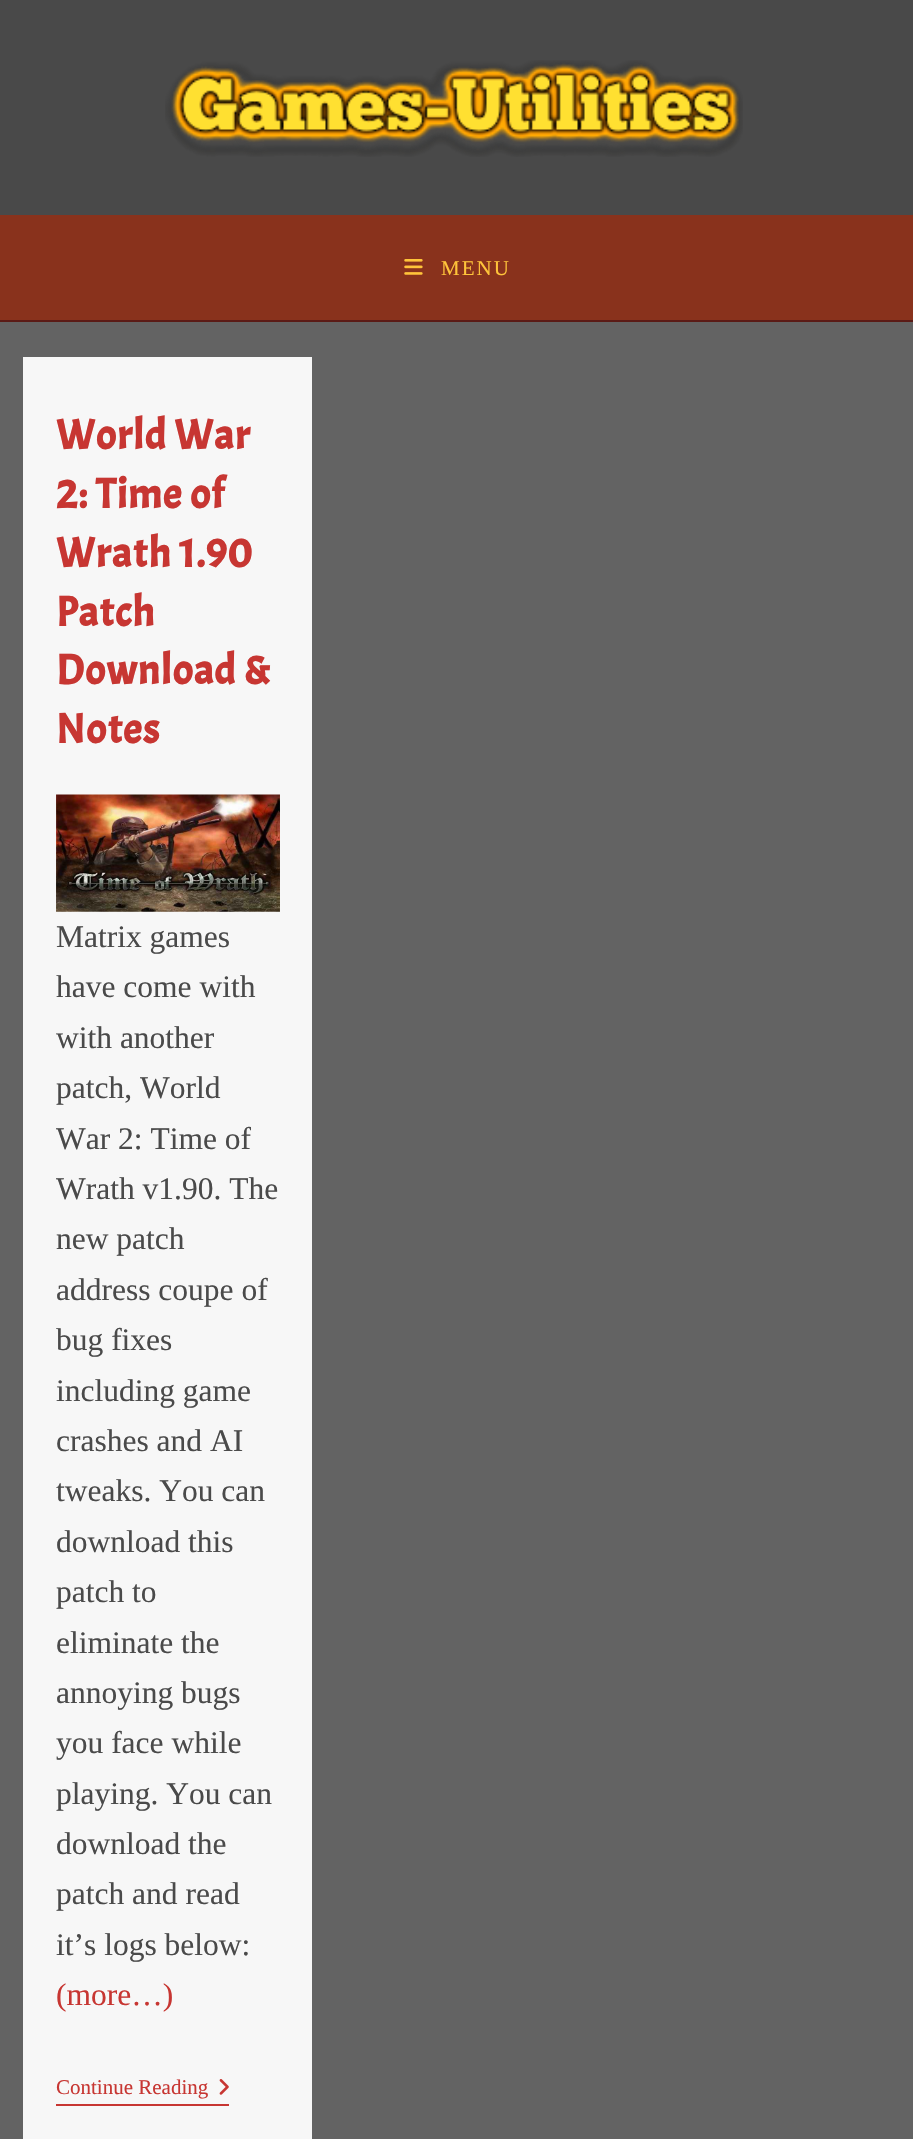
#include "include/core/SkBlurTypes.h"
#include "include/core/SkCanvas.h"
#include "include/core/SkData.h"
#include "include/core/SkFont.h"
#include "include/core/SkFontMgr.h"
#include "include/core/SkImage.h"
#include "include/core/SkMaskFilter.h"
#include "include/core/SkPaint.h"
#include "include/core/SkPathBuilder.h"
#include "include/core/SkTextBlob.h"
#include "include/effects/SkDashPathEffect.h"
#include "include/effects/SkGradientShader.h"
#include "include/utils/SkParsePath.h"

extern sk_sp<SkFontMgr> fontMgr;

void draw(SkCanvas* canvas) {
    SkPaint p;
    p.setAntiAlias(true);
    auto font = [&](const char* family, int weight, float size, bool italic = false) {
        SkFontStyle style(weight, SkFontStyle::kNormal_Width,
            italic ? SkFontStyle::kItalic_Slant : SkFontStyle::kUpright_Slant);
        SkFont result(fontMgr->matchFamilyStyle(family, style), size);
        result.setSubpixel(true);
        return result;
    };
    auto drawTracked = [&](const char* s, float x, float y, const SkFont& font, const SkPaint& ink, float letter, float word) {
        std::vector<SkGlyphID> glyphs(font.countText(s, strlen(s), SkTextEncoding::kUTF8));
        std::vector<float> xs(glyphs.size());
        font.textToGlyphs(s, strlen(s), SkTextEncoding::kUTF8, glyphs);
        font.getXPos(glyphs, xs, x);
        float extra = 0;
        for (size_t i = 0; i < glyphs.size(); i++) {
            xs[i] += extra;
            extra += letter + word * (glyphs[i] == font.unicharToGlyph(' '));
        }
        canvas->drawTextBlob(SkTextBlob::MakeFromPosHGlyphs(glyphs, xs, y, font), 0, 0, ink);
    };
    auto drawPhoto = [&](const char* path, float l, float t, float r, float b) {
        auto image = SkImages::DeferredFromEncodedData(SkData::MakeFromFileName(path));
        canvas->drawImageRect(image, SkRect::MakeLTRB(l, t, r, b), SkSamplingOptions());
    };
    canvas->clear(0xFF636363);
    p.setColor(0xFF5B1B16);
    canvas->drawRect(SkRect::MakeLTRB(0, 320, 913, 322), p);
    p.setColor(0xFF494949);
    canvas->drawRect(SkRect::MakeLTRB(0, 0, 913, 215), p);
    drawPhoto("media/1.png", 165, 60, 743, 157);
    p.setColor(0xFF89321C);
    canvas->drawRect(SkRect::MakeLTRB(0, 215, 913, 320), p);
    drawPhoto("media/2.png", 404, 259, 423, 275);
    auto font1 = font("Liberation Serif", 400, 21);
    p.setColor(0xFFFFC43A);
    drawTracked("MENU", 441, 275, font1, p, 2, 0);
    p.setColor(0xFFF7F7F7);
    canvas->drawRect(SkRect::MakeLTRB(23, 357, 312, 2139), p);
    auto font2 = font("Acme", 700, 42);
    p.setColor(0xFFC73632);
    {
        const struct { const char* s; float x, y; } items[] = {
            {"World War", 56, 449},
            {"2: Time of", 56, 508},
            {"Wrath 1.90", 56, 567},
            {"Patch", 56, 626},
            {"Download &", 56, 684},
            {"Notes", 56, 743},
        };
        for (auto [s, x, y] : items) {
            drawTracked(s, x, y, font2, p, 1, 0);
        }
    }
    drawPhoto("media/3.png", 56, 794, 280, 912);
    auto font3 = font("Liberation Serif", 400, 31.5f);
    p.setColor(0xFF4A4A4A);
    {
        const struct { const char* s; float x, y; } items[] = {
            {"Matrix games", 56, 947},
            {"have come with", 56, 997},
            {"with another", 56, 1048},
            {"patch, World", 56, 1098},
            {"War 2: Time of", 56, 1149},
            {"Wrath v1.90. The", 56, 1199},
            {"new patch", 56, 1249},
            {"address coupe of", 56, 1300},
            {"bug fixes", 56, 1350},
            {"including game", 56, 1401},
            {"crashes and AI", 56, 1451},
            {"tweaks. You can", 56, 1501},
            {"download this", 56, 1552},
            {"patch to", 56, 1602},
            {"eliminate the", 56, 1653},
            {"annoying bugs", 56, 1703},
            {"you face while", 56, 1753},
            {"playing. You can", 56, 1804},
            {"download the", 56, 1854},
            {"patch and read", 56, 1904},
            {"it’s logs below:", 56, 1955},
        };
        for (auto [s, x, y] : items) {
            canvas->drawString(s, x, y, font3, p);
        }
    }
    p.setColor(0xFFC73632);
    canvas->drawString("(more…)", 56, 2005, font3, p);
    canvas->drawRect(SkRect::MakeLTRB(56, 2104, 229, 2106), p);
    canvas->drawString("Continue Reading", 56, 2094, font1, p);
    drawPhoto("media/4.png", 219, 2079, 229, 2095);
}
